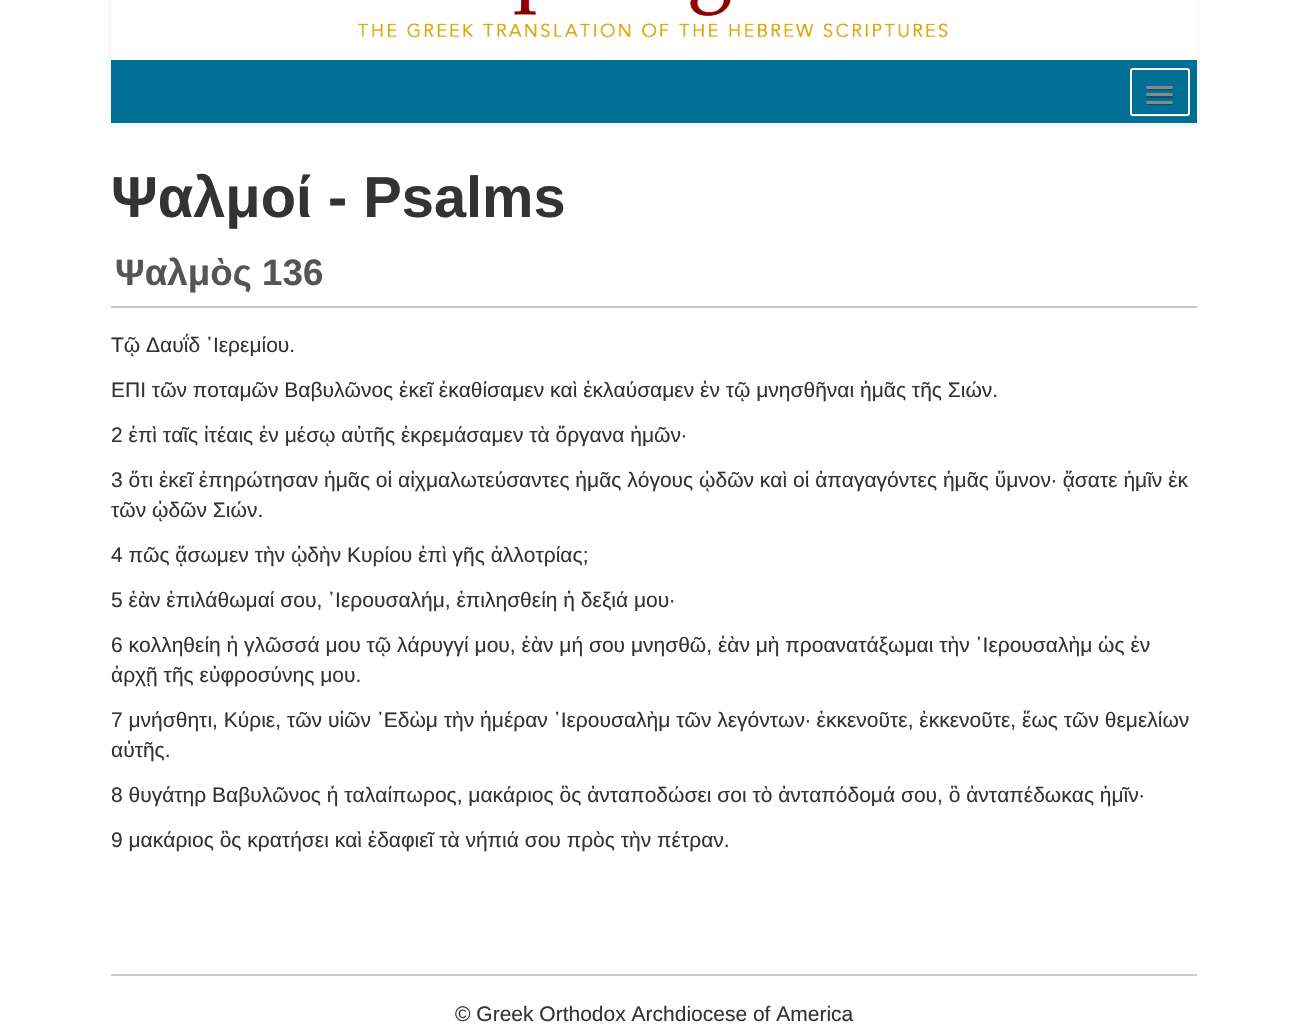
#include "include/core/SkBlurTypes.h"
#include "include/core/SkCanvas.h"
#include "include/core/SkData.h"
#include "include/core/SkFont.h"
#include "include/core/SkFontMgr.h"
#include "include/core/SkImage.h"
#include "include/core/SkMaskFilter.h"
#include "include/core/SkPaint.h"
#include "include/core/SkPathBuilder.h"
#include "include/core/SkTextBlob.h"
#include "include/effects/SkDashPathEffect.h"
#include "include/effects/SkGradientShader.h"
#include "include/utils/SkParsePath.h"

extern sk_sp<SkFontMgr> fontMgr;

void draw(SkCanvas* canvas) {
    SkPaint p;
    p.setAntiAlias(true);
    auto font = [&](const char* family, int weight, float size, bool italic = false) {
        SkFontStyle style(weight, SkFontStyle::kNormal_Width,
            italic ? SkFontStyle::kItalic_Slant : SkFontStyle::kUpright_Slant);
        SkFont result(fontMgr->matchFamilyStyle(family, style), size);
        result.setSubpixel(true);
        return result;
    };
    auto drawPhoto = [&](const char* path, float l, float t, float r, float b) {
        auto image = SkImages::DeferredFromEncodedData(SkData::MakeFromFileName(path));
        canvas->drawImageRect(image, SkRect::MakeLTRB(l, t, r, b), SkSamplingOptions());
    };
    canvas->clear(0xFFFFFFFF);
    p.setColor(0xFF006E95);
    canvas->drawRect(SkRect::MakeLTRB(111, 60, 1197, 123), p);
    canvas->save();
    canvas->clipPath(SkPathBuilder(SkPathFillType::kEvenOdd).moveTo(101, 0).lineTo(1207, 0).lineTo(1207, 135).lineTo(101, 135).close().moveTo(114, -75).lineTo(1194, -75).cubicTo(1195.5f, -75, 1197, -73.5f, 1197, -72).lineTo(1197, 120).cubicTo(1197, 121.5f, 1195.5f, 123, 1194, 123).lineTo(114, 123).cubicTo(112.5f, 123, 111, 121.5f, 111, 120).lineTo(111, -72).cubicTo(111, -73.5f, 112.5f, -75, 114, -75).close().detach(), true);
    p.setColor(0x12000000);
    p.setMaskFilter(SkMaskFilter::MakeBlur(kNormal_SkBlurStyle, 3));
    canvas->drawRoundRect(SkRect::MakeLTRB(111, -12, 1197, 125), 3, 3, p);
    p.setMaskFilter(nullptr);
    canvas->restore();
    p.setColor(0xFF13799D);
    canvas->drawPath(SkPathBuilder().moveTo(1130, 114).cubicTo(1130, 116, 1131, 117, 1133, 117).lineTo(1187, 117).cubicTo(1189, 117, 1190, 116, 1190, 114).lineTo(1190, 72).lineTo(1189, 70).lineTo(1190, 106).cubicTo(1190, 117, 1190, 116, 1178, 116).lineTo(1142, 116).cubicTo(1141, 116, 1132, 117, 1130, 114).close().detach(), p);
    p.setColor(0xFF1A7DA0);
    canvas->drawPath(SkPathBuilder().moveTo(1132, 70).lineTo(1186, 70).cubicTo(1187, 70, 1188, 71, 1188, 72).cubicTo(1188, 66, 1183, 69, 1178, 69).lineTo(1142, 69).cubicTo(1136, 69, 1131, 66, 1131, 72).close().detach(), p);
    p.setStyle(SkPaint::kStroke_Style);
    p.setStrokeWidth(2);
    p.setColor(0xFFFFFFFF);
    canvas->drawRoundRect(SkRect::MakeLTRB(1131, 69, 1189, 115), 2, 2, p);
    p.setStyle(SkPaint::kFill_Style);
    p.setColor(0xFF005370);
    canvas->drawPath(SkPathBuilder().moveTo(1146, 87.5f).cubicTo(1144.5f, 91, 1151.5f, 90, 1151.5f, 90).lineTo(1167.5f, 90).cubicTo(1167.5f, 90, 1174.5f, 91, 1173, 87.5f).cubicTo(1172.5f, 88, 1172, 88.5f, 1171.5f, 88.5f).lineTo(1147.5f, 88.5f).cubicTo(1147, 88.5f, 1146.5f, 88, 1146, 87.5f).close().detach(), p);
    p.setColor(0xFF888888);
    canvas->drawRoundRect(SkRect::MakeLTRB(1146, 86, 1173, 89), 1.5f, 1.5f, p);
    p.setColor(0xFF005370);
    canvas->drawPath(SkPathBuilder().moveTo(1146.5f, 95.5f).lineTo(1146, 97).cubicTo(1146.5f, 99, 1151, 98, 1151.5f, 98).lineTo(1167.5f, 98).cubicTo(1168, 98, 1172.5f, 99, 1173, 97).lineTo(1172.5f, 95.5f).lineTo(1171.5f, 96).lineTo(1147.5f, 96).close().detach(), p);
    p.setColor(0xFF888888);
    canvas->drawRoundRect(SkRect::MakeLTRB(1146, 93, 1173, 96), 1.5f, 1.5f, p);
    p.setColor(0xFF005370);
    canvas->drawPath(SkPathBuilder().moveTo(1146, 102.5f).cubicTo(1144.5f, 106, 1151.5f, 105, 1151.5f, 105).lineTo(1167.5f, 105).cubicTo(1167.5f, 105, 1174.5f, 106, 1173, 102.5f).cubicTo(1172.5f, 103, 1172, 103.5f, 1171.5f, 103.5f).lineTo(1147.5f, 103.5f).cubicTo(1147, 103.5f, 1146.5f, 103, 1146, 102.5f).close().detach(), p);
    p.setColor(0xFF888888);
    canvas->drawRoundRect(SkRect::MakeLTRB(1146, 101, 1173, 104), 1.5f, 1.5f, p);
    drawPhoto("media/1.png", 357, 0, 948, 38);
    auto font1 = font("Liberation Sans", 700, 57.75f);
    p.setColor(0xFF333333);
    canvas->drawString("Ψαλμοί - Psalms", 111, 217, font1, p);
    p.setColor(0xFFC8C9CA);
    canvas->drawRect(SkRect::MakeLTRB(111, 306, 1197, 308), p);
    auto font2 = font("Liberation Sans", 700, 36.75f);
    p.setColor(0xFF555555);
    canvas->drawString("Ψαλμὸς 136", 115, 285, font2, p);
    auto font3 = font("Liberation Sans", 400, 21);
    p.setColor(0xFF333333);
    {
        const struct { const char* s; float x, y; } items[] = {
            {"Τῷ Δαυΐδ ῾Ιερεμίου.", 111, 352},
            {"ΕΠΙ τῶν ποταμῶν Βαβυλῶνος ἐκεῖ ἐκαθίσαμεν καὶ ἐκλαύσαμεν ἐν τῷ μνησθῆναι ἡμᾶς τῆς Σιών.", 111, 397},
            {"2 ἐπὶ ταῖς ἰτέαις ἐν μέσῳ αὐτῆς ἐκρεμάσαμεν τὰ ὄργανα ἡμῶν·", 111, 442},
            {"3 ὅτι ἐκεῖ ἐπηρώτησαν ἡμᾶς οἱ αἰχμαλωτεύσαντες ἡμᾶς λόγους ᾠδῶν καὶ οἱ ἀπαγαγόντες ἡμᾶς ὕμνον· ᾄσατε ἡμῖν ἐκ", 111, 487},
            {"τῶν ᾠδῶν Σιών.", 111, 517},
            {"4 πῶς ᾄσωμεν τὴν ᾠδὴν Κυρίου ἐπὶ γῆς ἀλλοτρίας;", 111, 562},
            {"5 ἐὰν ἐπιλάθωμαί σου, ῾Ιερουσαλήμ, ἐπιλησθείη ἡ δεξιά μου·", 111, 607},
            {"6 κολληθείη ἡ γλῶσσά μου τῷ λάρυγγί μου, ἐὰν μή σου μνησθῶ, ἐὰν μὴ προανατάξωμαι τὴν ῾Ιερουσαλὴμ ὡς ἐν", 111, 652},
            {"ἀρχῇ τῆς εὐφροσύνης μου.", 111, 682},
            {"7 μνήσθητι, Κύριε, τῶν υἱῶν ᾿Εδὼμ τὴν ἡμέραν ῾Ιερουσαλὴμ τῶν λεγόντων· ἐκκενοῦτε, ἐκκενοῦτε, ἕως τῶν θεμελίων", 111, 727},
            {"αὐτῆς.", 111, 757},
            {"8 θυγάτηρ Βαβυλῶνος ἡ ταλαίπωρος, μακάριος ὃς ἀνταποδώσει σοι τὸ ἀνταπόδομά σου, ὃ ἀνταπέδωκας ἡμῖν·", 111, 802},
            {"9 μακάριος ὃς κρατήσει καὶ ἐδαφιεῖ τὰ νήπιά σου πρὸς τὴν πέτραν.", 111, 847},
        };
        for (auto [s, x, y] : items) {
            canvas->drawString(s, x, y, font3, p);
        }
    }
    p.setColor(0xFFCCCCCC);
    canvas->drawRect(SkRect::MakeLTRB(111, 974, 1197, 976), p);
    p.setColor(0xFF333333);
    canvas->drawString("© Greek Orthodox Archdiocese of America", 455, 1021, font3, p);
}
